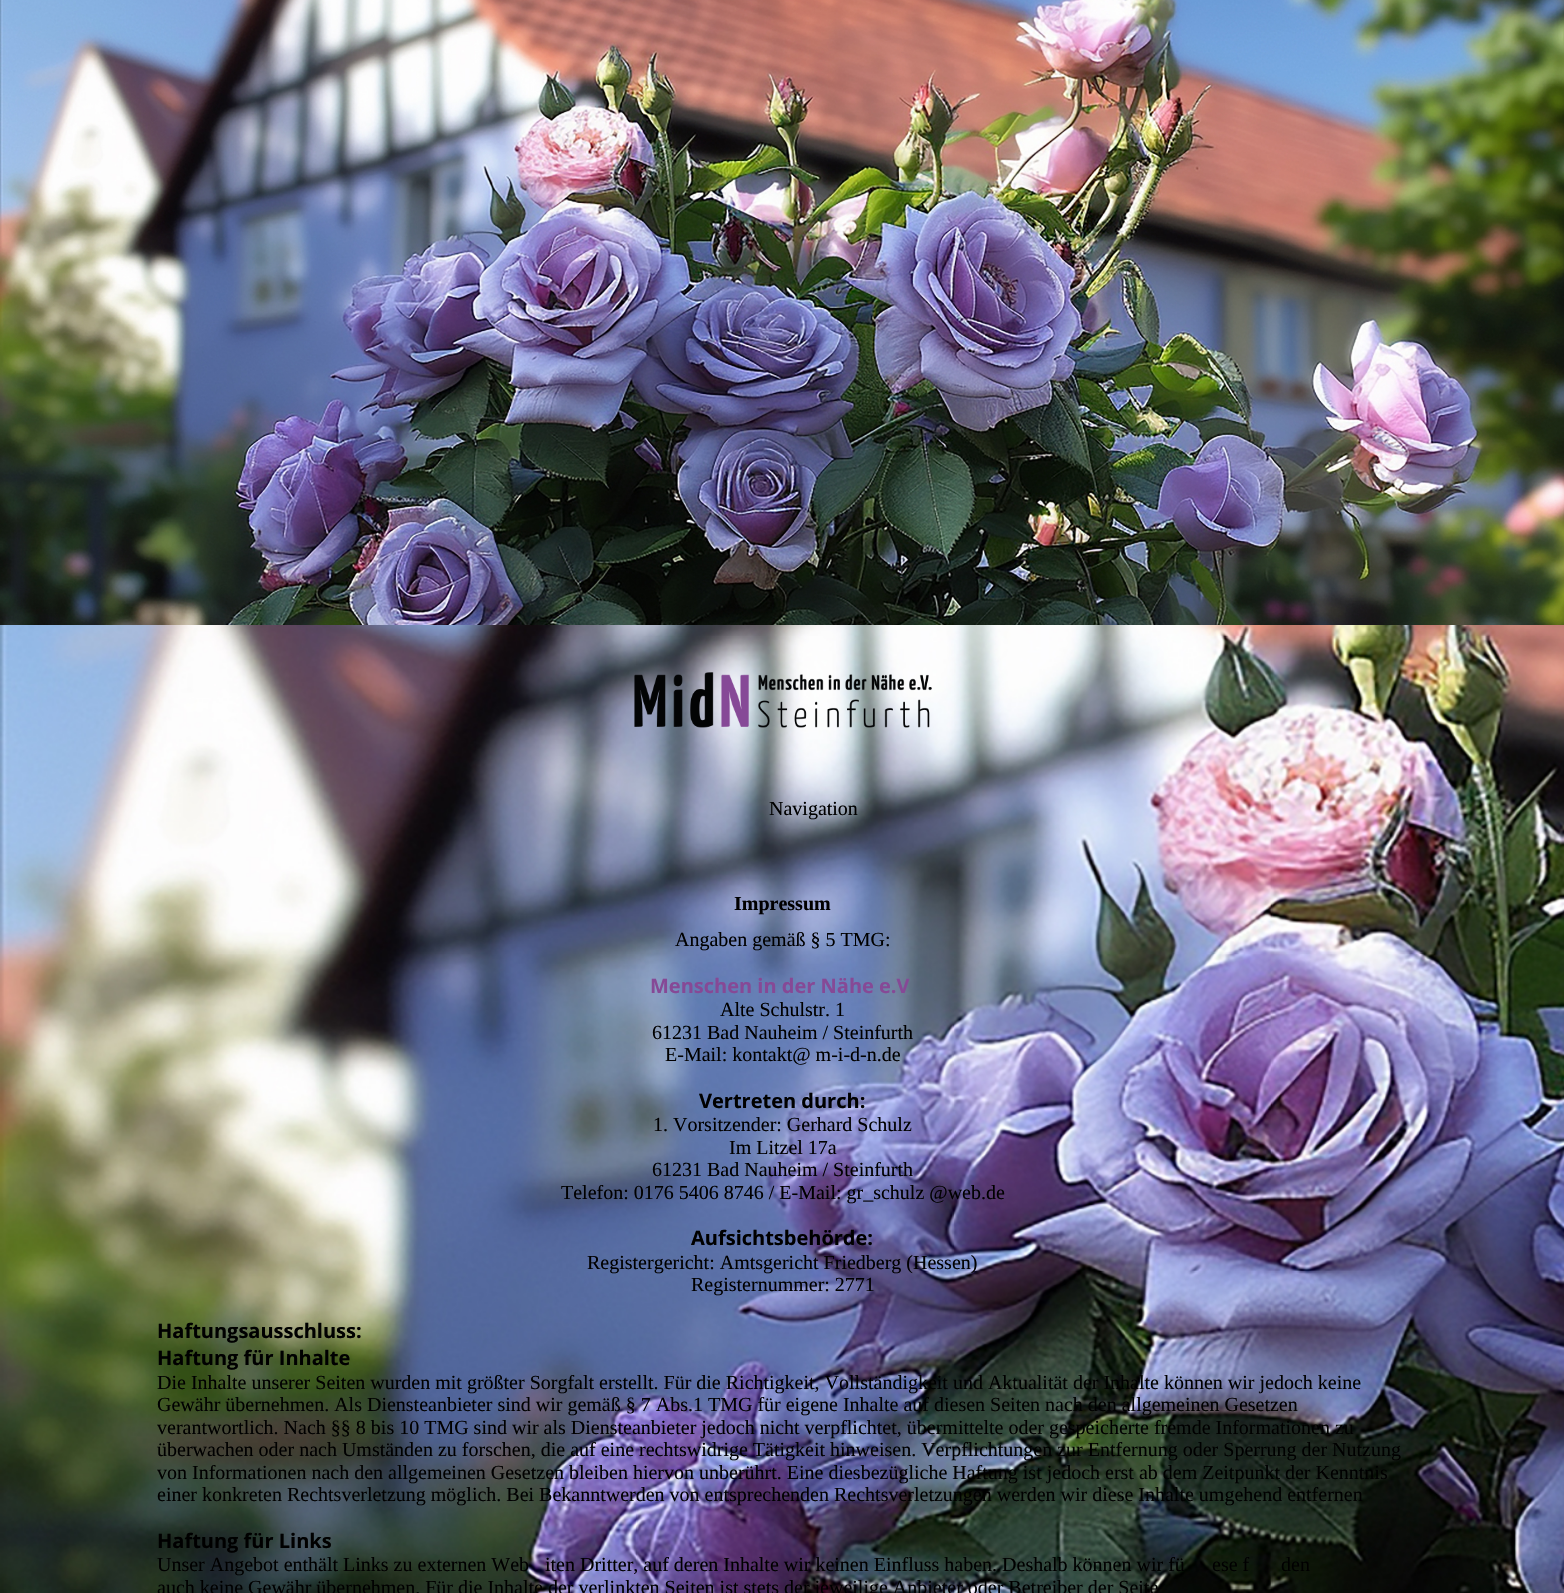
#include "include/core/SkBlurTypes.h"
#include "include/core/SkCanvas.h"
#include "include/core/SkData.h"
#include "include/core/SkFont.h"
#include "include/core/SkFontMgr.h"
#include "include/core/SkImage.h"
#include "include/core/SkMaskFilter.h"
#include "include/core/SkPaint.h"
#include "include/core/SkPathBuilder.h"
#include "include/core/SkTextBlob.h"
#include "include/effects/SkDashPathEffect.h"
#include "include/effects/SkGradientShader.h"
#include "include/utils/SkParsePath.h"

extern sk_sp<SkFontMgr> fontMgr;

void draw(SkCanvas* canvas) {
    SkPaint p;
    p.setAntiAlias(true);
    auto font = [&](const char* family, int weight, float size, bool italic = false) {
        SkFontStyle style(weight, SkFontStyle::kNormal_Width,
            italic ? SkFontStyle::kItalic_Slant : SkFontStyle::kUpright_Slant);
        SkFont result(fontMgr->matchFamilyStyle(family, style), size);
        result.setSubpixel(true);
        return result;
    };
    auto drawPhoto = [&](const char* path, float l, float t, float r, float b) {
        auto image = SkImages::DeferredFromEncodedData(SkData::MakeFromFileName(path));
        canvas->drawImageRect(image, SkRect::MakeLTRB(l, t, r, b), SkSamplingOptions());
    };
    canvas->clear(0xFFFFFFFF);
    drawPhoto("media/1.png", 0, 625, 1564, 1593);
    drawPhoto("media/2.png", 0, 0, 1564, 625);
    drawPhoto("media/3.png", 634, 672, 932, 728);
    auto font1 = font("Liberation Serif", 400, 20);
    p.setColor(0xFF000000);
    canvas->drawString("Navigation", 769, 815, font1, p);
    auto font2 = font("Liberation Serif", 700, 20);
    canvas->drawString("Impressum", 734, 910, font2, p);
    canvas->drawString("Angaben gemäß § 5 TMG:", 675, 946, font1, p);
    auto font3 = font("Open Sans", 700, 20);
    p.setColor(0xFF864996);
    canvas->drawString("Menschen in der Nähe e.V", 650, 993, font3, p);
    p.setColor(0xFF000000);
    {
        const struct { const char* s; float x, y; } items[] = {
            {"Alte Schulstr. 1", 720, 1016},
            {"61231 Bad Nauheim / Steinfurth", 652, 1039},
            {"E-Mail: kontakt@ m-i-d-n.de", 665, 1061},
        };
        for (auto [s, x, y] : items) {
            canvas->drawString(s, x, y, font1, p);
        }
    }
    canvas->drawString("Vertreten durch:", 699, 1108, font3, p);
    {
        const struct { const char* s; float x, y; } items[] = {
            {"1. Vorsitzender: Gerhard Schulz", 653, 1131},
            {"Im Litzel 17a", 729, 1154},
            {"61231 Bad Nauheim / Steinfurth", 652, 1176},
            {"Telefon: 0176 5406 8746 / E-Mail: gr_schulz @web.de", 561, 1199},
        };
        for (auto [s, x, y] : items) {
            canvas->drawString(s, x, y, font1, p);
        }
    }
    canvas->drawString("Aufsichtsbehörde:", 691, 1245, font3, p);
    canvas->drawString("Registergericht: Amtsgericht Friedberg (Hessen)", 587, 1269, font1, p);
    canvas->drawString("Registernummer: 2771", 691, 1291, font1, p);
    canvas->drawString("Haftungsausschluss:", 157, 1338, font3, p);
    canvas->drawString("Haftung für Inhalte", 157, 1365, font3, p);
    {
        const struct { const char* s; float x, y; } items[] = {
            {"Die Inhalte unserer Seiten wurden mit größter Sorgfalt erstellt. Für die Richtigkeit, Vollständigkeit und Aktualität der Inhalte können wir jedoch keine", 157, 1389},
            {"Gewähr übernehmen. Als Diensteanbieter sind wir gemäß § 7 Abs.1 TMG für eigene Inhalte auf diesen Seiten nach den allgemeinen Gesetzen", 157, 1411},
            {"verantwortlich. Nach §§ 8 bis 10 TMG sind wir als Diensteanbieter jedoch nicht verpflichtet, übermittelte oder gespeicherte fremde Informationen zu", 157, 1434},
            {"überwachen oder nach Umständen zu forschen, die auf eine rechtswidrige Tätigkeit hinweisen. Verpflichtungen zur Entfernung oder Sperrung der Nutzung", 157, 1456},
            {"von Informationen nach den allgemeinen Gesetzen bleiben hiervon unberührt. Eine diesbezügliche Haftung ist jedoch erst ab dem Zeitpunkt der Kenntnis", 157, 1479},
            {"einer konkreten Rechtsverletzung möglich. Bei Bekanntwerden von entsprechenden Rechtsverletzungen werden wir diese Inhalte umgehend entfernen", 157, 1501},
        };
        for (auto [s, x, y] : items) {
            canvas->drawString(s, x, y, font1, p);
        }
    }
    canvas->drawString("Haftung für Links", 157, 1548, font3, p);
    {
        const struct { const char* s; float x, y; } items[] = {
            {"Unser Angebot enthält Links zu externen Web", 157, 1571},
            {"iten Dritter, auf deren Inhalte wir keinen Einfluss haben. Deshalb können wir fü", 545, 1571},
            {"ese f", 1212, 1571},
            {"den", 1281, 1571},
            {"auch keine Gewähr übernehmen. Für die Inhalte der verlinkten Seiten ist stets der jeweilige Anbieter oder Betreiber der Seite", 157, 1594},
        };
        for (auto [s, x, y] : items) {
            canvas->drawString(s, x, y, font1, p);
        }
    }
}
